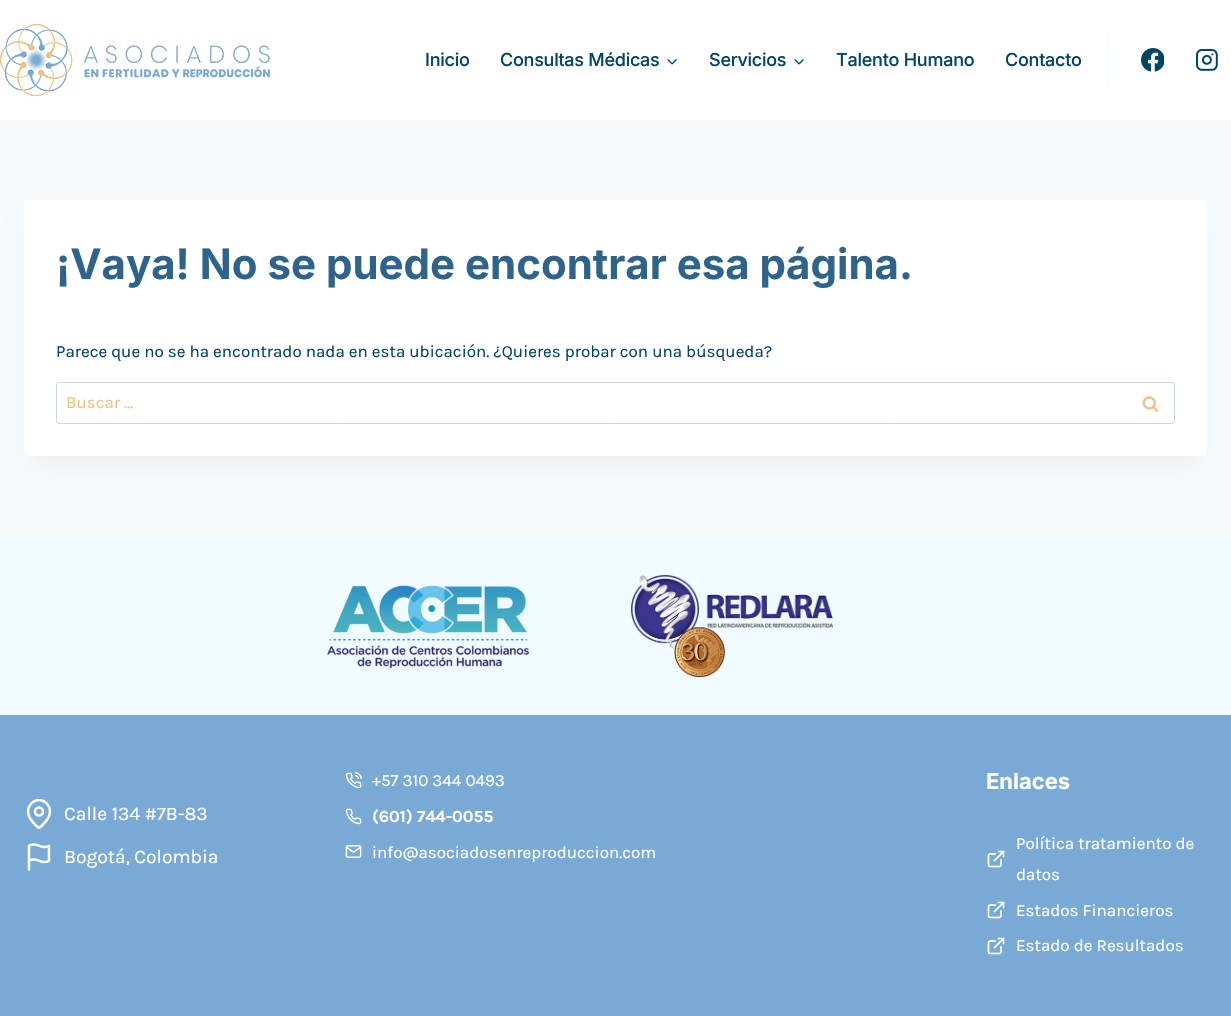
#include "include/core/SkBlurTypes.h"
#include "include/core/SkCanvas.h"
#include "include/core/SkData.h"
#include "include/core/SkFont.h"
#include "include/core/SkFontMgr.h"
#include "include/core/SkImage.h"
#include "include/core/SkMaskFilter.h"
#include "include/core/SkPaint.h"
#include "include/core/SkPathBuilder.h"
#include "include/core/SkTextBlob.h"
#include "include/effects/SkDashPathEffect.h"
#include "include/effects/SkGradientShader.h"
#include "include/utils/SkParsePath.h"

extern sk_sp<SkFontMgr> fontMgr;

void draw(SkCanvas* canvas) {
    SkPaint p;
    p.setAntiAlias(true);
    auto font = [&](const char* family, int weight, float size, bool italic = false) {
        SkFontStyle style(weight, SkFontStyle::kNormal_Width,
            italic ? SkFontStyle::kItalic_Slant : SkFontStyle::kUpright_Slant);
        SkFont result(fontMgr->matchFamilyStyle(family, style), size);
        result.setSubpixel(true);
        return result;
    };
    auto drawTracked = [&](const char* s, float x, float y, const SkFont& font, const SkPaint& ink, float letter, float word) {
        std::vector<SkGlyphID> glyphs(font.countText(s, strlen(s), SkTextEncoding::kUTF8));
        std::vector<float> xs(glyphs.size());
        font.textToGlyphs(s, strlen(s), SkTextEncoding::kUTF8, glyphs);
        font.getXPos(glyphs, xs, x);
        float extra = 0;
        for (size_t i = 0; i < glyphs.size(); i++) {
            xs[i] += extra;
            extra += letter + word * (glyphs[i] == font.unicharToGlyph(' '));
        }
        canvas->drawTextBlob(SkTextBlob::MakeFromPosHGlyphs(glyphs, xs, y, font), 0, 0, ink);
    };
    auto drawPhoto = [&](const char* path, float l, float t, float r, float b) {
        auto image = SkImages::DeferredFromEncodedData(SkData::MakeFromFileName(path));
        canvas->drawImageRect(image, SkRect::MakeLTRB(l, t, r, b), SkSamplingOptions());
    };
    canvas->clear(0xFFF6FAFD);
    p.setColor(0xFFFFFFFF);
    canvas->drawRect(SkRect::MakeLTRB(0, 0, 1231, 120), p);
    drawPhoto("media/1.png", 0, 24, 270, 96);
    auto font1 = font("Inter", 500, 18);
    p.setColor(0xFF004469);
    drawTracked("Inicio", 425, 66, font1, p, -0.25f, 0);
    drawTracked("Consultas Médicas", 500, 66, font1, p, -0.25f, 0);
    drawPhoto("media/2.png", 667, 59, 677, 65);
    drawTracked("Servicios", 709, 66, font1, p, -0.25f, 0);
    drawPhoto("media/2.png", 794, 59, 804, 65);
    drawTracked("Talento Humano", 836, 66, font1, p, -0.25f, 0);
    drawTracked("Contacto", 1005, 66, font1, p, -0.25f, 0);
    p.setColor(0xFFEFFBFF);
    canvas->drawRect(SkRect::MakeLTRB(1108, 35, 1109, 85), p);
    drawPhoto("media/3.png", 1141, 48, 1164, 72);
    drawPhoto("media/4.png", 1196, 49, 1218, 71);
    p.setColor(0x0D000000);
    p.setMaskFilter(SkMaskFilter::MakeBlur(kNormal_SkBlurStyle, 12.5f));
    canvas->drawRect(SkRect::MakeLTRB(34, 225, 1197, 461), p);
    p.setMaskFilter(nullptr);
    p.setColor(0xFFFFFFFF);
    canvas->drawRoundRect(SkRect::MakeLTRB(24, 200, 1207, 456), 4, 4, p);
    auto font2 = font("Inter", 700, 42);
    p.setColor(0xFF2E648C);
    canvas->drawString("¡Vaya! No se puede encontrar esa página.", 56, 279, font2, p);
    auto font3 = font("Karla", 400, 17);
    p.setColor(0xFF004469);
    canvas->drawString("Parece que no se ha encontrado nada en esta ubicación. ¿Quieres probar con una búsqueda?", 56, 357, font3, p);
    p.setStyle(SkPaint::kStroke_Style);
    p.setStrokeWidth(1);
    p.setColor(0xFFCBD5E0);
    canvas->drawRoundRect(SkRect::MakeLTRB(56.5f, 382.5f, 1174.5f, 423.5f), 2.5f, 2.5f, p);
    p.setStyle(SkPaint::kFill_Style);
    p.setColor(0xFFE9C388);
    canvas->drawString("Buscar …", 66, 408, font3, p);
    drawPhoto("media/5.png", 1142, 396, 1159, 412);
    p.setColor(0xFFEFFBFF);
    canvas->drawRect(SkRect::MakeLTRB(0, 536, 1231, 715), p);
    drawPhoto("media/6.png", 327, 584, 529, 668);
    drawPhoto("media/7.png", 631, 575, 833, 677);
    p.setColor(0xFF79A9D5);
    canvas->drawRect(SkRect::MakeLTRB(0, 715, 1231, 1016), p);
    canvas->save();
    canvas->clipRect(SkRect::MakeLTRB(24, 799, 54, 829));
    p.setStyle(SkPaint::kStroke_Style);
    p.setStrokeWidth(2.5f);
    p.setStrokeCap(SkPaint::kRound_Cap);
    p.setStrokeJoin(SkPaint::kRound_Join);
    p.setColor(0xFFFFFFFF);
    canvas->drawPath(SkPathBuilder().moveTo(50, 811.5f).cubicTo(50, 820, 39, 828, 39, 828).cubicTo(39, 828, 28, 820, 28, 811.5f).cubicTo(28, 805.5f, 33, 800, 39, 800).cubicTo(45, 800, 50, 805.5f, 50, 811.5f).close().detach(), p);
    canvas->restore();
    p.setStrokeCap(SkPaint::kButt_Cap);
    p.setStrokeJoin(SkPaint::kMiter_Join);
    canvas->drawCircle(39, 811.5f, 4, p);
    auto font4 = font("Karla", 400, 19.25f);
    p.setStyle(SkPaint::kFill_Style);
    canvas->drawString("Calle 134 #7B-83", 64, 820, font4, p);
    drawPhoto("media/8.png", 27, 843, 51, 871);
    canvas->drawString("Bogotá, Colombia", 64, 863, font4, p);
    drawPhoto("media/9.png", 345, 772, 362, 789);
    canvas->drawString("+57 310 344 0493", 372, 786, font3, p);
    drawPhoto("media/10.png", 345, 808, 362, 825);
    auto font5 = font("Karla", 700, 17);
    canvas->drawString("(601) 744-0055", 372, 822, font5, p);
    drawPhoto("media/11.png", 345, 845, 362, 858);
    canvas->drawString("info@asociadosenreproduccion.com", 372, 858, font3, p);
    auto font6 = font("Inter", 700, 22);
    canvas->drawString("Enlaces", 986, 789, font6, p);
    drawPhoto("media/12.png", 987, 850, 1005, 868);
    canvas->drawString("Política tratamiento de", 1016, 849, font3, p);
    canvas->drawString("datos", 1016, 880, font3, p);
    drawPhoto("media/12.png", 987, 901, 1005, 919);
    canvas->drawString("Estados Financieros", 1016, 916, font3, p);
    drawPhoto("media/12.png", 987, 937, 1005, 955);
    canvas->drawString("Estado de Resultados", 1016, 951, font3, p);
}
